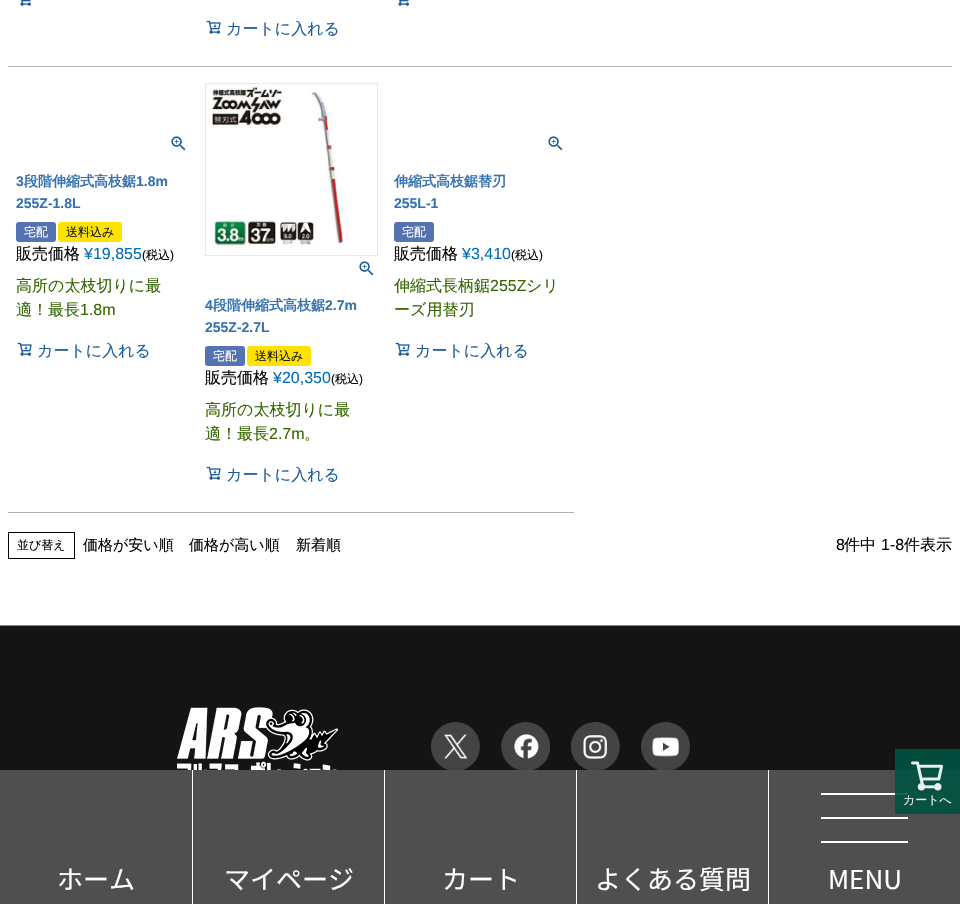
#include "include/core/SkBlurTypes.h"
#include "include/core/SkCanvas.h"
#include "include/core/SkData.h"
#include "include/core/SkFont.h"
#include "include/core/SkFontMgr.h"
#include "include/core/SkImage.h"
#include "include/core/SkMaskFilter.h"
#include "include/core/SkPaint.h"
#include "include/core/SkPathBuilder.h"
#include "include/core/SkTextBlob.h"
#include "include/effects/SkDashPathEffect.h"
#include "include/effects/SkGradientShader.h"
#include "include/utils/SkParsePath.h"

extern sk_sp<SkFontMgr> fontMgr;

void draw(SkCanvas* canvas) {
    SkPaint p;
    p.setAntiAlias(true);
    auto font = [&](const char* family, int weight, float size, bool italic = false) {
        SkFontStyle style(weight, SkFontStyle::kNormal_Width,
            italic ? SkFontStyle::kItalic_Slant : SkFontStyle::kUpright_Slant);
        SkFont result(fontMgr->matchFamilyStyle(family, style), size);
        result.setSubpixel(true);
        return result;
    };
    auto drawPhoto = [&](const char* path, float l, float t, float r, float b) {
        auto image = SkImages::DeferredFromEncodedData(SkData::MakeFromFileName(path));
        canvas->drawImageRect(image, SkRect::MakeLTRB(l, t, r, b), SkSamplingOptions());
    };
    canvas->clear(0xFFFFFFFF);
    p.setColor(0xFFB2B2B2);
    canvas->drawRect(SkRect::MakeLTRB(8, 66, 952, 67), p);
    drawPhoto("media/1.png", 20, 0, 31, 6);
    drawPhoto("media/1.png", 398, 0, 409, 6);
    drawPhoto("media/2.png", 206, 20, 221, 34);
    auto font1 = font("WenQuanYi Zen Hei", 500, 16);
    p.setColor(0xFF1E5D9B);
    canvas->drawString("カートに入れる", 226, 34, font1, p);
    p.setColor(0xFFB2B2B2);
    canvas->drawRect(SkRect::MakeLTRB(8, 512, 574, 513), p);
    drawPhoto("media/3.png", 171, 136, 186, 151);
    auto font2 = font("Liberation Sans", 700, 14);
    p.setColor(0xFF3572B0);
    canvas->drawString("3", 16, 186, font2, p);
    auto font3 = font("WenQuanYi Zen Hei", 700, 14);
    canvas->drawString("段階伸縮式高枝鋸", 24, 186, font3, p);
    canvas->drawString("1.8m", 136, 186, font2, p);
    canvas->drawString("255Z-1.8L", 16, 208, font2, p);
    p.setColor(0xFF5572B2);
    canvas->drawRoundRect(SkRect::MakeLTRB(16, 222, 56, 242), 3, 3, p);
    auto font4 = font("WenQuanYi Zen Hei", 500, 12);
    p.setColor(0xFFFFFFFF);
    canvas->drawString("宅配", 24, 236, font4, p);
    p.setColor(0xFFFFE102);
    canvas->drawRoundRect(SkRect::MakeLTRB(58, 222, 122, 242), 3, 3, p);
    p.setColor(0xFF1A1A1A);
    canvas->drawString("送料込み", 66, 236, font4, p);
    p.setColor(0xFF010101);
    canvas->drawString("販売価格", 16, 259, font1, p);
    auto font5 = font("Liberation Sans", 400, 16);
    p.setColor(0xFF006DB8);
    canvas->drawString("¥19,855", 84, 259, font5, p);
    auto font6 = font("Liberation Sans", 400, 12);
    p.setColor(0xFF010101);
    canvas->drawString("(", 142, 259, font6, p);
    canvas->drawString("税込", 146, 259, font4, p);
    canvas->drawString(")", 170, 259, font6, p);
    p.setColor(0xFF336600);
    canvas->drawString("高所の太枝切りに最", 16, 291, font1, p);
    canvas->drawString("適！最長", 16, 315, font1, p);
    canvas->drawString("1.8m", 80, 315, font5, p);
    drawPhoto("media/2.png", 17, 342, 32, 356);
    p.setColor(0xFF1E5D9B);
    canvas->drawString("カートに入れる", 37, 356, font1, p);
    drawPhoto("media/3.png", 548, 136, 563, 151);
    p.setColor(0xFF3572B0);
    canvas->drawString("伸縮式高枝鋸替刃", 394, 186, font3, p);
    canvas->drawString("255L-1", 394, 208, font2, p);
    p.setColor(0xFF5572B2);
    canvas->drawRoundRect(SkRect::MakeLTRB(394, 222, 434, 242), 3, 3, p);
    p.setColor(0xFFFFFFFF);
    canvas->drawString("宅配", 402, 236, font4, p);
    p.setColor(0xFF010101);
    canvas->drawString("販売価格", 394, 259, font1, p);
    p.setColor(0xFF006DB8);
    canvas->drawString("¥3,410", 462, 259, font5, p);
    p.setColor(0xFF010101);
    canvas->drawString("(", 511, 259, font6, p);
    canvas->drawString("税込", 515, 259, font4, p);
    canvas->drawString(")", 539, 259, font6, p);
    p.setColor(0xFF336600);
    canvas->drawString("伸縮式長柄鋸", 394, 291, font1, p);
    canvas->drawString("255Z", 490, 291, font5, p);
    canvas->drawString("シリ", 526, 291, font1, p);
    canvas->drawString("ーズ用替刃", 394, 315, font1, p);
    drawPhoto("media/2.png", 395, 342, 410, 356);
    p.setColor(0xFF1E5D9B);
    canvas->drawString("カートに入れる", 415, 356, font1, p);
    drawPhoto("media/4.png", 205, 83, 378, 256);
    drawPhoto("media/3.png", 359, 261, 374, 276);
    p.setColor(0xFF3572B0);
    canvas->drawString("4", 205, 310, font2, p);
    canvas->drawString("段階伸縮式高枝鋸", 213, 310, font3, p);
    canvas->drawString("2.7m", 325, 310, font2, p);
    canvas->drawString("255Z-2.7L", 205, 332, font2, p);
    p.setColor(0xFF5572B2);
    canvas->drawRoundRect(SkRect::MakeLTRB(205, 346, 245, 366), 3, 3, p);
    p.setColor(0xFFFFFFFF);
    canvas->drawString("宅配", 213, 360, font4, p);
    p.setColor(0xFFFFE102);
    canvas->drawRoundRect(SkRect::MakeLTRB(247, 346, 311, 366), 3, 3, p);
    p.setColor(0xFF1A1A1A);
    canvas->drawString("送料込み", 255, 360, font4, p);
    p.setColor(0xFF010101);
    canvas->drawString("販売価格", 205, 383, font1, p);
    p.setColor(0xFF006DB8);
    canvas->drawString("¥20,350", 273, 383, font5, p);
    p.setColor(0xFF010101);
    canvas->drawString("(", 331, 383, font6, p);
    canvas->drawString("税込", 335, 383, font4, p);
    canvas->drawString(")", 359, 383, font6, p);
    p.setColor(0xFF336600);
    canvas->drawString("高所の太枝切りに最", 205, 415, font1, p);
    canvas->drawString("適！最長", 205, 439, font1, p);
    canvas->drawString("2.7m", 269, 439, font5, p);
    canvas->drawString("。", 304, 439, font1, p);
    drawPhoto("media/2.png", 206, 466, 221, 480);
    p.setColor(0xFF1E5D9B);
    canvas->drawString("カートに入れる", 226, 480, font1, p);
    p.setStyle(SkPaint::kStroke_Style);
    p.setStrokeWidth(1);
    p.setColor(0xFF010101);
    canvas->drawRect(SkRect::MakeLTRB(8.5f, 532.5f, 74.5f, 558.5f), p);
    p.setStyle(SkPaint::kFill_Style);
    canvas->drawString("並び替え", 17, 549, font4, p);
    auto font7 = font("WenQuanYi Zen Hei", 500, 15);
    {
        const struct { const char* s; float x, y; } items[] = {
            {"価格が安い順", 83, 550},
            {"価格が高い順", 189, 550},
            {"新着順", 296, 550},
        };
        for (auto [s, x, y] : items) {
            canvas->drawString(s, x, y, font7, p);
        }
    }
    canvas->drawString("8", 836, 550, font5, p);
    canvas->drawString("件中", 844, 550, font1, p);
    canvas->drawString("1-8", 881, 550, font5, p);
    canvas->drawString("件表示", 904, 550, font1, p);
    {
        const struct { float l, t, r, b; SkColor color; } items[] = {
            {0, 626, 960, 770, 0xFF141414},
            {895, 749, 960, 770, 0xFF024C3E},
            {0, 770, 960, 904, 0xFF4F4F4F},
            {895, 770, 960, 814, 0xFF085244},
        };
        for (auto [l, t, r, b, color] : items) {
            p.setColor(color);
            canvas->drawRect(SkRect::MakeLTRB(l, t, r, b), p);
        }
    }
    drawPhoto("media/5.png", 911, 761, 943, 791);
    p.setColor(0xFFEDEDED);
    canvas->drawString("カートへ", 903, 804, font4, p);
    p.setColor(0xFF7C8790);
    canvas->drawRect(SkRect::MakeLTRB(0, 625, 960, 626), p);
    drawPhoto("media/6.png", 177, 707, 338, 770);
    drawPhoto("media/7.png", 431, 722, 480, 770);
    drawPhoto("media/8.png", 501, 722, 550, 770);
    drawPhoto("media/9.png", 571, 722, 620, 770);
    drawPhoto("media/10.png", 641, 722, 690, 770);
    auto font8 = font("Noto Sans JP", 400, 26);
    p.setColor(0xFFFFFFFF);
    canvas->drawString("ホーム", 57, 889, font8, p);
    canvas->drawRect(SkRect::MakeLTRB(192, 770, 193, 904), p);
    canvas->drawString("マイページ", 224, 889, font8, p);
    canvas->drawRect(SkRect::MakeLTRB(384, 770, 385, 904), p);
    canvas->drawString("カート", 442, 889, font8, p);
    canvas->drawRect(SkRect::MakeLTRB(576, 770, 577, 904), p);
    canvas->drawString("よくある質問", 595, 889, font8, p);
    {
        const struct { float l, t, r, b; SkColor color; } items[] = {
            {768, 770, 769, 904, 0xFFFFFFFF},
            {821, 793, 895, 795, 0xFFFFFFFF},
            {895, 793, 908, 795, 0xFF196356},
            {821, 817, 908, 819, 0xFFFFFFFF},
            {821, 841, 908, 843, 0xFFFFFFFF},
        };
        for (auto [l, t, r, b, color] : items) {
            p.setColor(color);
            canvas->drawRect(SkRect::MakeLTRB(l, t, r, b), p);
        }
    }
    canvas->drawString("MENU", 828, 889, font8, p);
}
